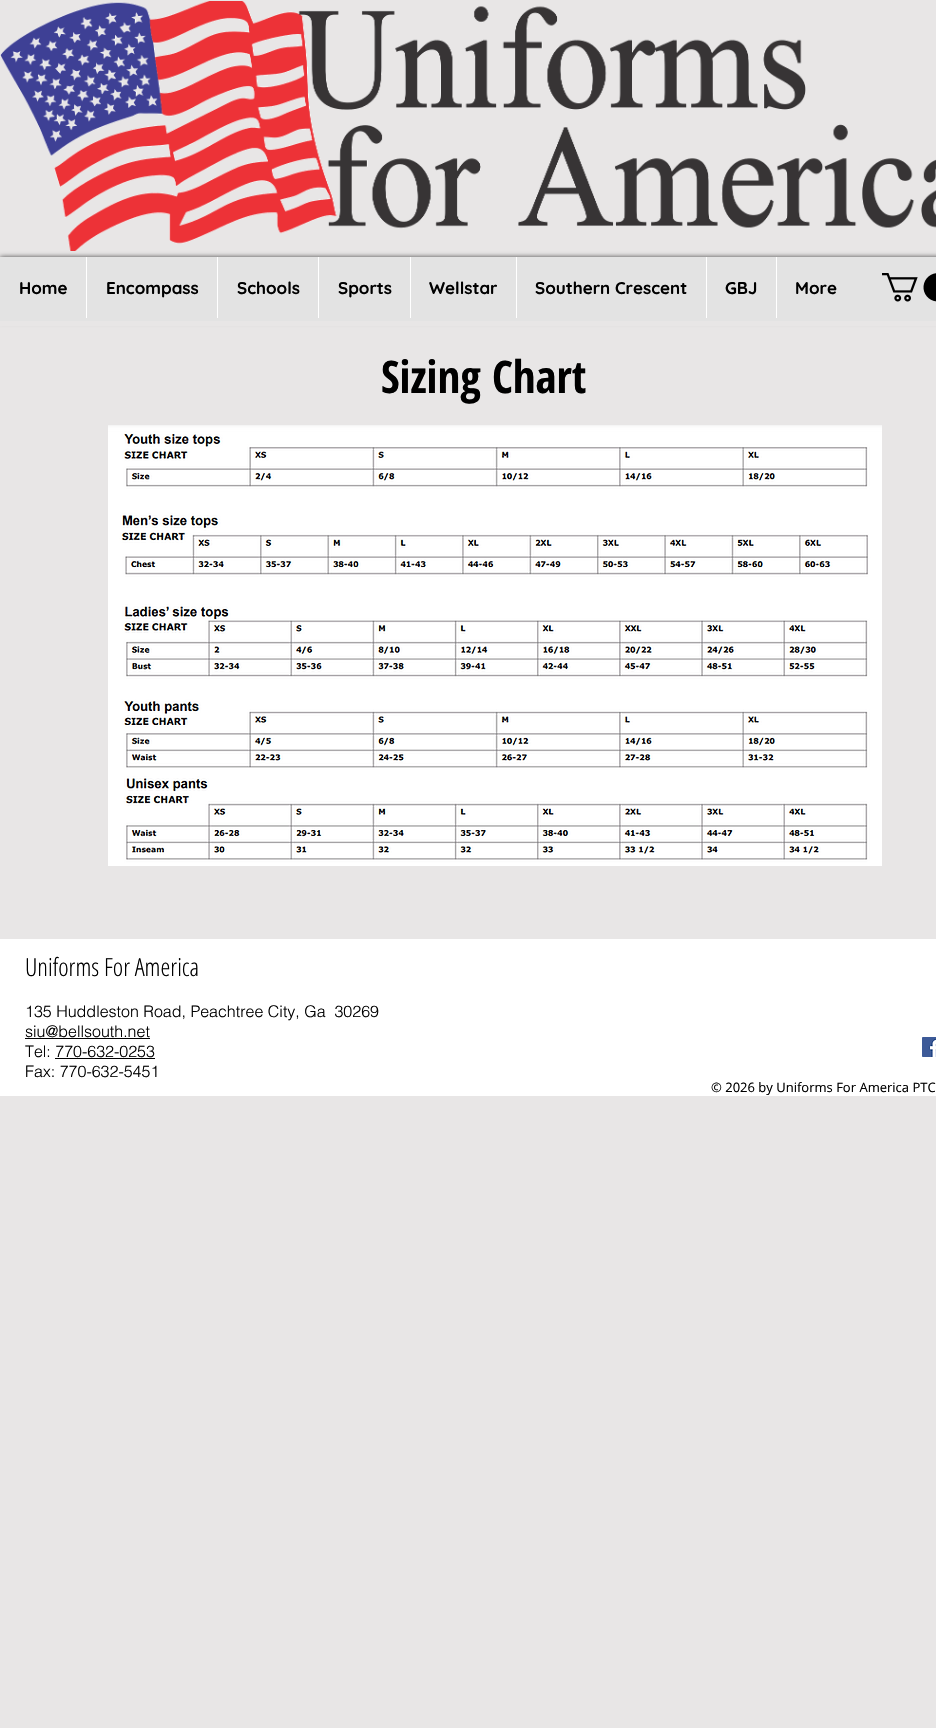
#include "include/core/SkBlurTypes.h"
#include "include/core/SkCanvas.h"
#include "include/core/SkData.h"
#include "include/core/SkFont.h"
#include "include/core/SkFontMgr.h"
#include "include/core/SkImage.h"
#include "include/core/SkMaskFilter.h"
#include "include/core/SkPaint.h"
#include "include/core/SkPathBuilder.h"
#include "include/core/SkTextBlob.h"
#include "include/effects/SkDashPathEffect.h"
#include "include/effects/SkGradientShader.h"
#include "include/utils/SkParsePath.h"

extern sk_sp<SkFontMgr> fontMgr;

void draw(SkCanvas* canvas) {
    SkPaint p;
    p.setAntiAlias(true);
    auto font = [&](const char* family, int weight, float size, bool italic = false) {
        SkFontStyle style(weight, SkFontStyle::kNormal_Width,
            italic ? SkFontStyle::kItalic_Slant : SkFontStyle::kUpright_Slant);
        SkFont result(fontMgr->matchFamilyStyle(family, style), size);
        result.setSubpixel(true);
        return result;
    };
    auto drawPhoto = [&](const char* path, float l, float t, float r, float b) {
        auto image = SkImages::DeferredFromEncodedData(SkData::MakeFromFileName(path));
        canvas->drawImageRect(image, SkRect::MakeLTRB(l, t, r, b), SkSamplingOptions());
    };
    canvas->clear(0xFFE8E6E6);
    drawPhoto("media/1.png", 0, 1, 936, 251);
    p.setColor(0xB3000000);
    p.setMaskFilter(SkMaskFilter::MakeBlur(kNormal_SkBlurStyle, 2.5f));
    canvas->drawRect(SkRect::MakeLTRB(0, 257, 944, 321), p);
    p.setMaskFilter(nullptr);
    p.setColor(0xFFE3E3E3);
    canvas->drawRect(SkRect::MakeLTRB(0, 257, 936, 321), p);
    auto font1 = font("Quicksand", 700, 17);
    p.setColor(0xFF000000);
    canvas->drawString("Home", 19, 294, font1, p);
    p.setColor(0xFFFFFFFF);
    canvas->drawRect(SkRect::MakeLTRB(86, 257, 87, 318), p);
    p.setColor(0xFF000000);
    canvas->drawString("Encompass", 106, 294, font1, p);
    p.setColor(0xFFFFFFFF);
    canvas->drawRect(SkRect::MakeLTRB(217, 257, 218, 318), p);
    p.setColor(0xFF000000);
    canvas->drawString("Schools", 237, 294, font1, p);
    p.setColor(0xFFFFFFFF);
    canvas->drawRect(SkRect::MakeLTRB(318, 257, 319, 318), p);
    p.setColor(0xFF000000);
    canvas->drawString("Sports", 338, 294, font1, p);
    p.setColor(0xFFFFFFFF);
    canvas->drawRect(SkRect::MakeLTRB(410, 257, 411, 318), p);
    p.setColor(0xFF000000);
    canvas->drawString("Wellstar", 429, 294, font1, p);
    p.setColor(0xFFFFFFFF);
    canvas->drawRect(SkRect::MakeLTRB(516, 257, 517, 318), p);
    p.setColor(0xFF000000);
    canvas->drawString("Southern Crescent", 535, 294, font1, p);
    p.setColor(0xFFFFFFFF);
    canvas->drawRect(SkRect::MakeLTRB(706, 257, 707, 318), p);
    p.setColor(0xFF000000);
    canvas->drawString("GBJ", 725, 294, font1, p);
    p.setColor(0xFFFFFFFF);
    canvas->drawRect(SkRect::MakeLTRB(776, 257, 777, 318), p);
    p.setColor(0xFF000000);
    canvas->drawString("More", 795, 294, font1, p);
    drawPhoto("media/2.png", 882, 273, 936, 302);
    p.setColor(0xFFE8E6E6);
    canvas->drawRect(SkRect::MakeLTRB(0, 321, 936, 326), p);
    auto font2 = font("Open Sans Condensed", 700, 45);
    p.setColor(0xFF000000);
    canvas->drawString("Sizing Chart", 381, 393, font2, p);
    drawPhoto("media/3.png", 108, 425, 882, 866);
    p.setColor(0xFFFFFFFF);
    canvas->drawRect(SkRect::MakeLTRB(0, 939, 936, 1096), p);
    auto font3 = font("Open Sans Condensed", 300, 25);
    p.setColor(0xFF000000);
    canvas->drawString("Uniforms For America", 25, 976, font3, p);
    auto font4 = font("helvetica", 300, 16);
    canvas->drawString("135 Huddleston Road, Peachtree City, Ga  30269", 25, 1017, font4, p);
    canvas->drawString("siu@bellsouth.net", 25, 1037, font4, p);
    canvas->drawRect(SkRect::MakeLTRB(25, 1038, 150, 1039), p);
    canvas->drawString("Tel: 770-632-0253", 25, 1057, font4, p);
    canvas->drawRect(SkRect::MakeLTRB(55, 1058, 155, 1059), p);
    canvas->drawString("Fax: 770-632-5451", 25, 1077, font4, p);
    drawPhoto("media/4.png", 922, 1037, 936, 1057);
    auto font5 = font("Open Sans", 400, 13);
    canvas->drawString("© 2026 by Uniforms For America PTC", 711, 1092, font5, p);
}
